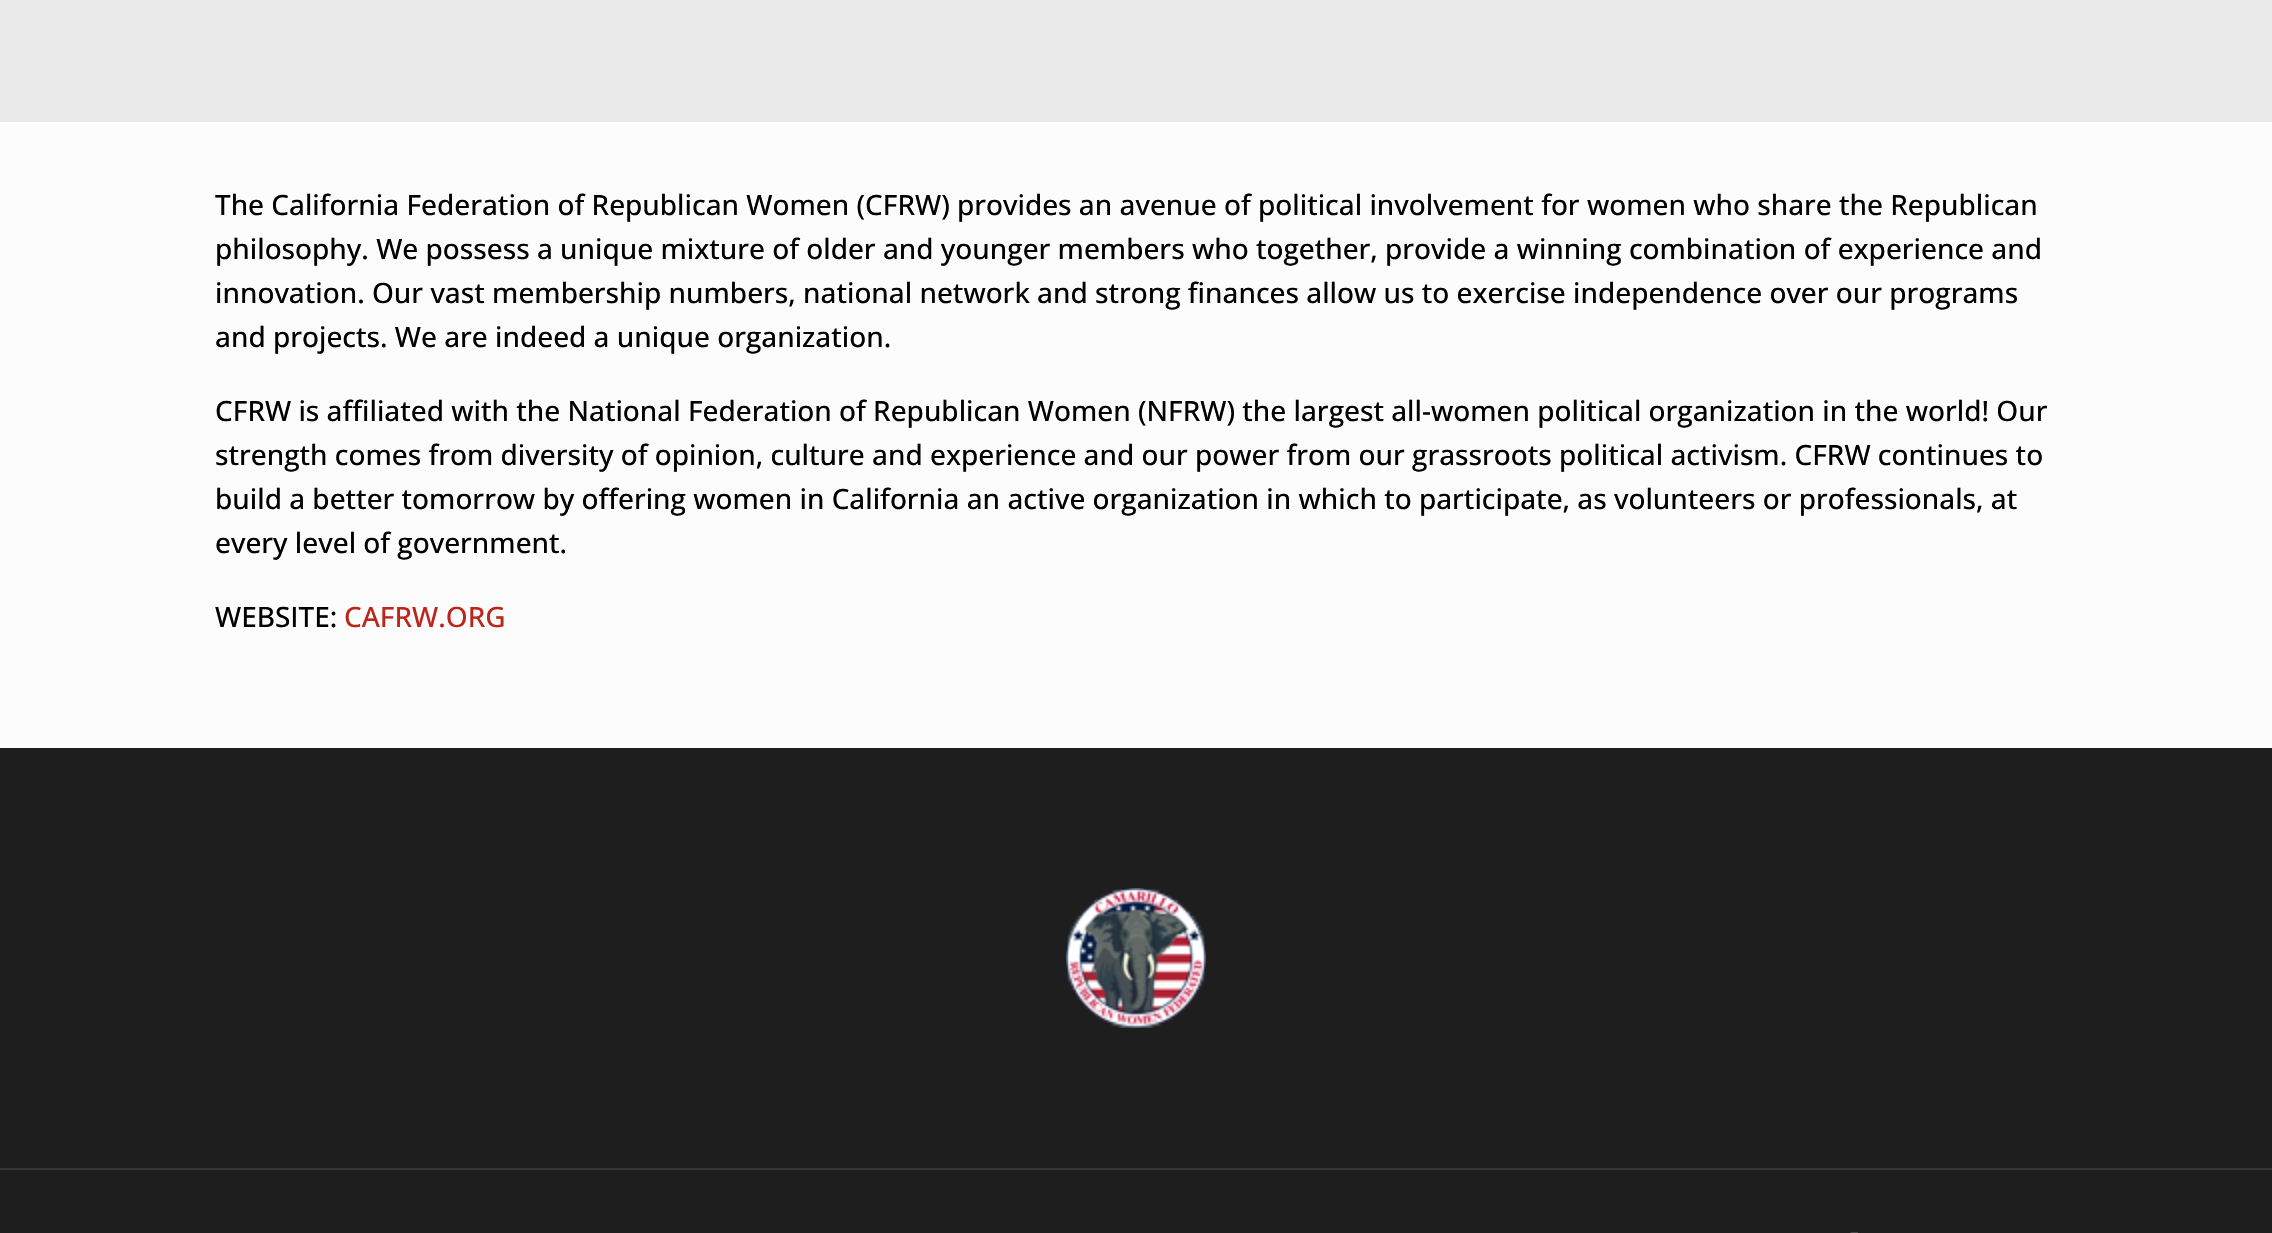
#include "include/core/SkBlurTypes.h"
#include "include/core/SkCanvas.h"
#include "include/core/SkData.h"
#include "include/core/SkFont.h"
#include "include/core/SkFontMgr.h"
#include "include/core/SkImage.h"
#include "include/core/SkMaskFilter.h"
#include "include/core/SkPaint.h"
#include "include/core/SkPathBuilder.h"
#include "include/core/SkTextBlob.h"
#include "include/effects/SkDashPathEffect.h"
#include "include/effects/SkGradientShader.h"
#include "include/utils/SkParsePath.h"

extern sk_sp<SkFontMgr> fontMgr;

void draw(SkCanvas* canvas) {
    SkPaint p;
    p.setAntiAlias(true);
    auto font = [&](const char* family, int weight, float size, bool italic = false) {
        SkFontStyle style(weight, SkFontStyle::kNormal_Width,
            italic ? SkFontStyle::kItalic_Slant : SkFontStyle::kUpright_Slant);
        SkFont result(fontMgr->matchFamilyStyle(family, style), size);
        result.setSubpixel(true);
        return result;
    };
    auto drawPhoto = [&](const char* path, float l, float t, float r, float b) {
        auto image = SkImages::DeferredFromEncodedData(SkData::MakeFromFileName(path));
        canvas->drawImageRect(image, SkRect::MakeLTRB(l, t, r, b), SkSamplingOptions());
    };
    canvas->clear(0xFFFCFCFC);
    p.setColor(0xFFEAEAEA);
    canvas->drawRect(SkRect::MakeLTRB(0, 0, 2272, 122), p);
    auto font1 = font("Open Sans", 500, 28);
    p.setColor(0xFF000000);
    {
        const struct { const char* s; float x, y; } items[] = {
            {"The California Federation of Republican Women (CFRW) provides an avenue of political involvement for women who share the Republican", 215, 215},
            {"philosophy. We possess a unique mixture of older and younger members who together, provide a winning combination of experience and", 215, 259},
            {"innovation. Our vast membership numbers, national network and strong finances allow us to exercise independence over our programs", 215, 303},
            {"and projects. We are indeed a unique organization.", 215, 347},
            {"CFRW is affiliated with the National Federation of Republican Women (NFRW) the largest all-women political organization in the world! Our", 215, 421},
            {"strength comes from diversity of opinion, culture and experience and our power from our grassroots political activism. CFRW continues to", 215, 465},
            {"build a better tomorrow by offering women in California an active organization in which to participate, as volunteers or professionals, at", 215, 509},
            {"every level of government.", 215, 553},
            {"WEBSITE:", 215, 627},
        };
        for (auto [s, x, y] : items) {
            canvas->drawString(s, x, y, font1, p);
        }
    }
    p.setColor(0xFFBC2519);
    canvas->drawString("CAFRW.ORG", 344, 627, font1, p);
    p.setColor(0xFF1E1E1E);
    canvas->drawRect(SkRect::MakeLTRB(0, 748, 2272, 1233), p);
    drawPhoto("media/1.png", 1066, 888, 1206, 1028);
    p.setColor(0xFF353535);
    canvas->drawRect(SkRect::MakeLTRB(0, 1168, 2272, 1170), p);
    drawPhoto("media/2.png", 1850, 1232, 1858, 1233);
}
